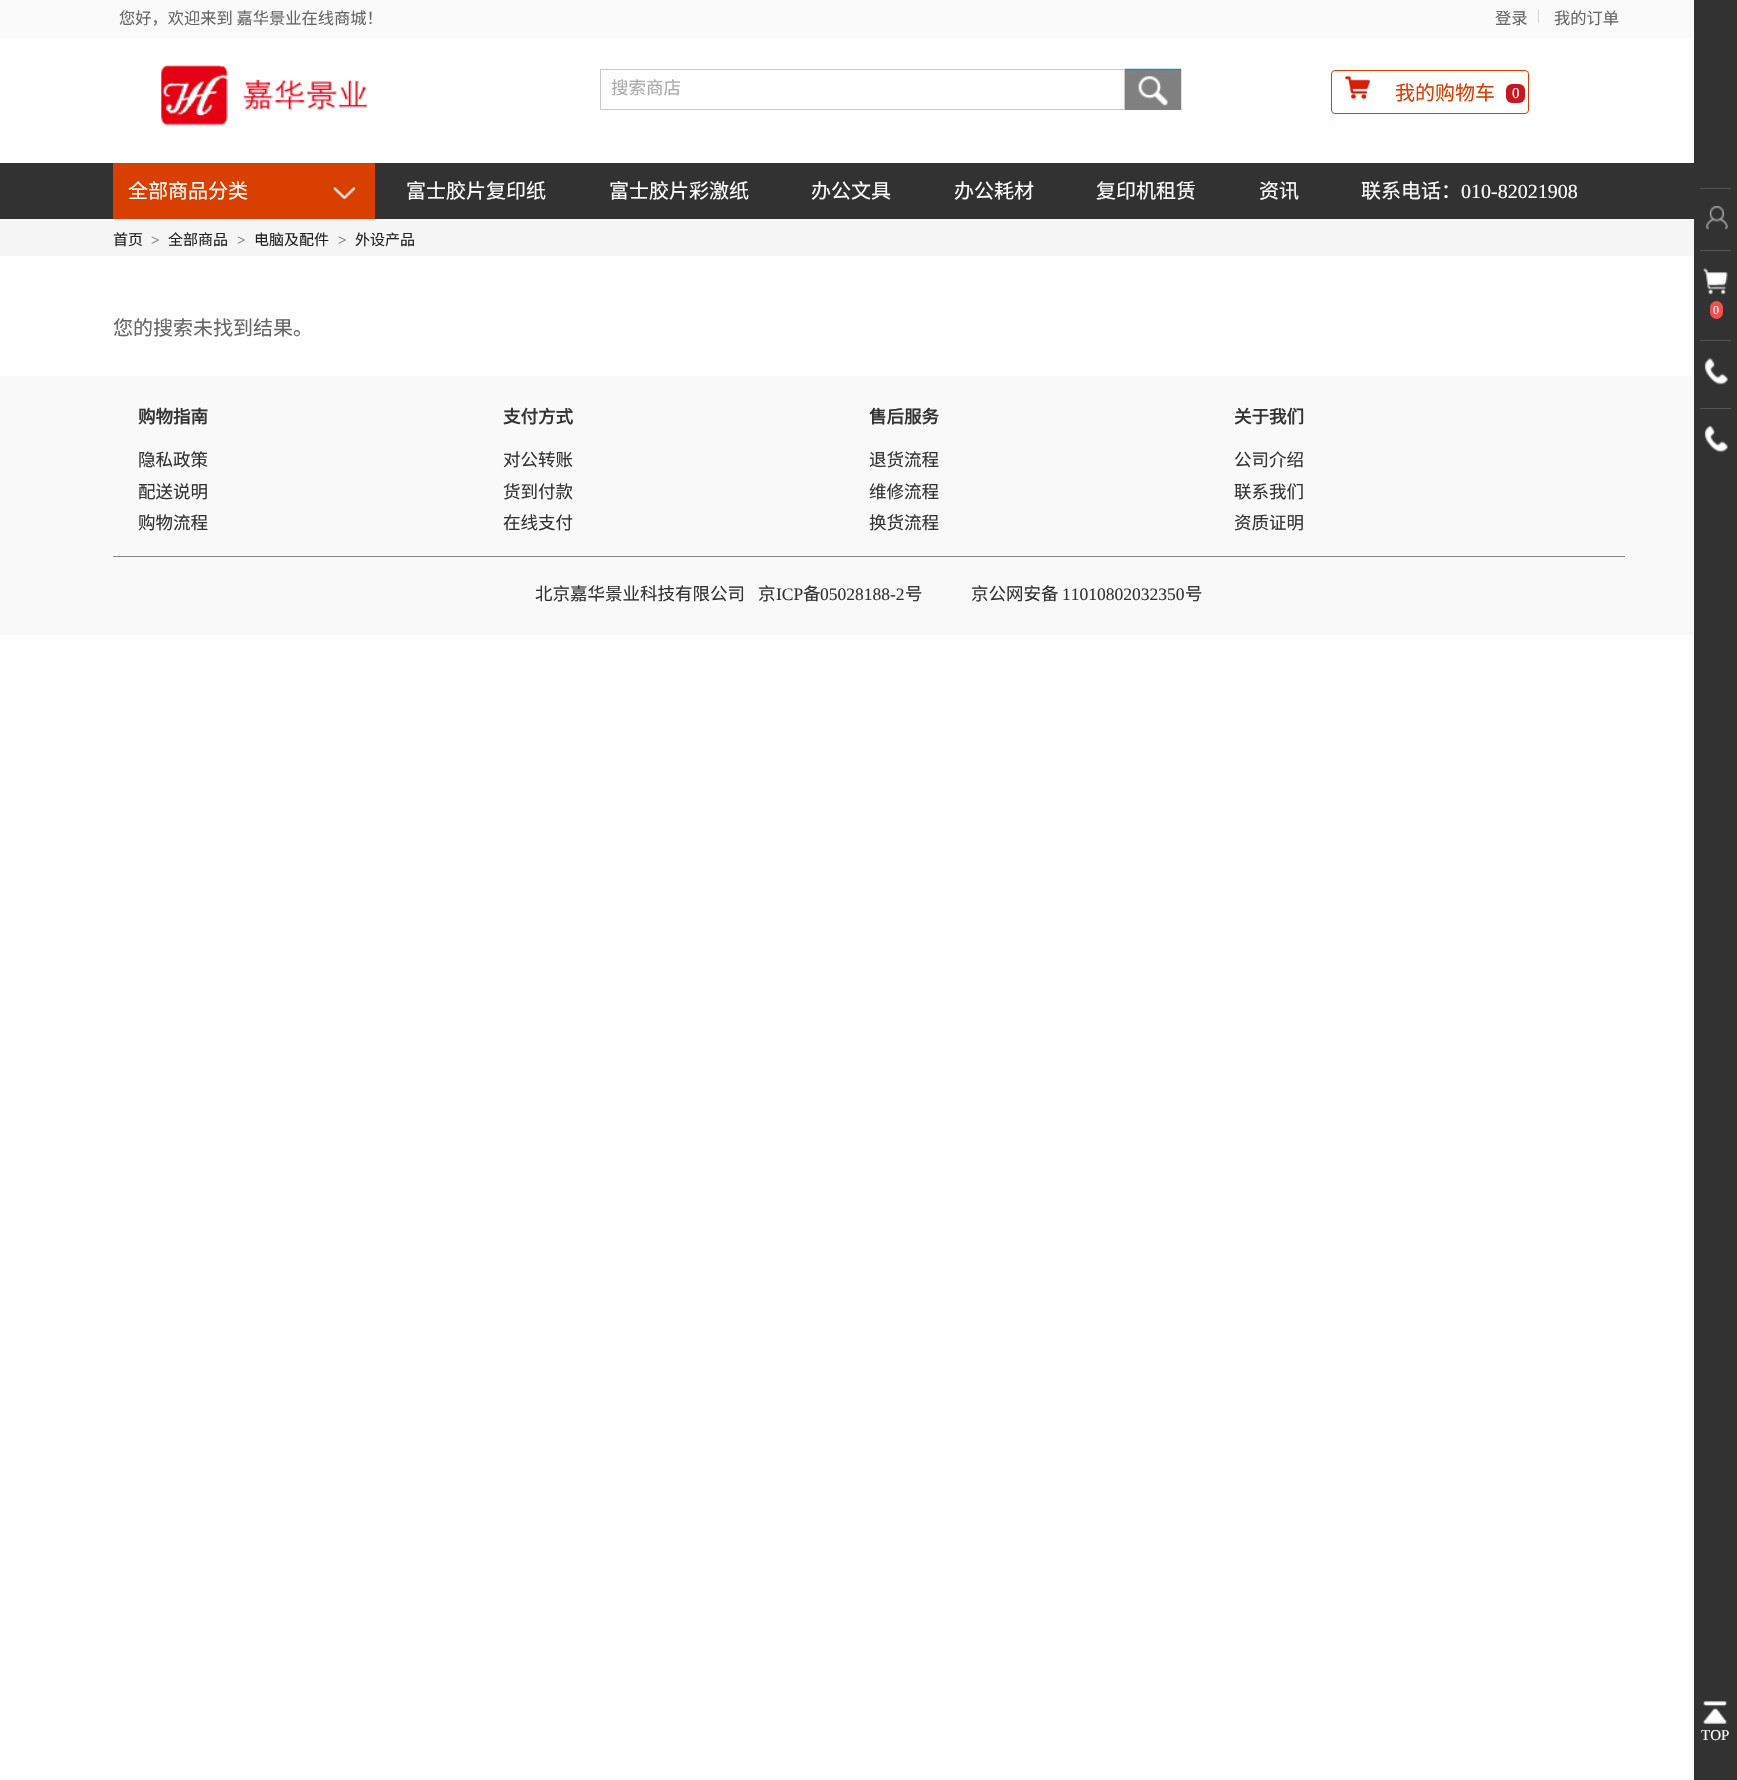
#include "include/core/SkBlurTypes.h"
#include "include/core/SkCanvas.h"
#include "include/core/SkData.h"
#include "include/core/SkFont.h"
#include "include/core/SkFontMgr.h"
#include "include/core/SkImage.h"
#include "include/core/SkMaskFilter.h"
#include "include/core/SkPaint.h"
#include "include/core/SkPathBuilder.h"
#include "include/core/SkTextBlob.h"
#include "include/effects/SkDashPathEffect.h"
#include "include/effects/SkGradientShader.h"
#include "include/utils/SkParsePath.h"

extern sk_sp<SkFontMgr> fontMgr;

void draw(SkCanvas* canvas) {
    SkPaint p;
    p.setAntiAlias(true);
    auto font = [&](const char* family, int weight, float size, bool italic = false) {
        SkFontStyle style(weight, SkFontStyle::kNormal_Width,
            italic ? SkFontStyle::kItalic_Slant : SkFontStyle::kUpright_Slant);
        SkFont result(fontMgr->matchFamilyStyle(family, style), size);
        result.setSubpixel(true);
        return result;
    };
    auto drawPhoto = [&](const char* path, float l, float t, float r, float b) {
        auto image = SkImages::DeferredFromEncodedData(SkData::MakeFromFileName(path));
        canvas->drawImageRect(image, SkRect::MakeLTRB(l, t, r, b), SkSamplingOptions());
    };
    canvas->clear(0xFFFFFFFF);
    p.setColor(0xFFFAFAFA);
    canvas->drawRect(SkRect::MakeLTRB(0, 0, 1694, 38), p);
    auto font1 = font("Noto Sans CJK SC", 400, 16.25f);
    p.setColor(0xFF666666);
    canvas->drawString("您好，欢迎来到 嘉华景业在线商城！", 119, 24, font1, p);
    canvas->drawString("登录", 1495, 24, font1, p);
    auto font2 = font("Liberation Serif", 400, 15);
    p.setColor(0xFFCDCDCD);
    canvas->drawString("|", 1537, 20, font2, p);
    p.setColor(0xFF666666);
    canvas->drawString("我的订单", 1554, 24, font1, p);
    drawPhoto("media/1.png", 161, 64, 368, 126);
    p.setStyle(SkPaint::kStroke_Style);
    p.setStrokeWidth(1);
    p.setColor(0xFFC8CACA);
    canvas->drawRect(SkRect::MakeLTRB(600.5f, 69.5f, 1124.5f, 109.5f), p);
    auto font3 = font("Noto Sans CJK SC", 400, 17.5f);
    p.setStyle(SkPaint::kFill_Style);
    p.setColor(0xFFAAAAAA);
    canvas->drawString("搜索商店", 611, 94, font3, p);
    drawPhoto("media/2.png", 1125, 68, 1182, 110);
    p.setStyle(SkPaint::kStroke_Style);
    p.setColor(0xFFD93F01);
    canvas->drawRoundRect(SkRect::MakeLTRB(1331.5f, 70.5f, 1528.5f, 113.5f), 3.5f, 3.5f, p);
    drawPhoto("media/3.png", 1345, 75, 1370, 100);
    auto font4 = font("Noto Sans CJK SC", 400, 20);
    p.setStyle(SkPaint::kFill_Style);
    canvas->drawString("我的购物车", 1395, 100, font4, p);
    p.setColor(0xFFC81623);
    canvas->drawRoundRect(SkRect::MakeLTRB(1506, 84, 1525, 103), 6, 6, p);
    p.setColor(0xFFFFFFFF);
    canvas->drawString("0", 1512, 98, font2, p);
    p.setColor(0xFF323232);
    canvas->drawRect(SkRect::MakeLTRB(0, 163, 1694, 219), p);
    p.setColor(0xFFD93F01);
    canvas->drawRect(SkRect::MakeLTRB(113, 163, 375, 219), p);
    p.setColor(0xFFFFFFFF);
    canvas->drawString("全部商品分类", 128, 198, font4, p);
    drawPhoto("media/4.png", 333, 187, 356, 199);
    {
        const struct { const char* s; float x, y; } items[] = {
            {"富士胶片复印纸", 406, 198},
            {"富士胶片彩激纸", 609, 198},
            {"办公文具", 811, 198},
            {"办公耗材", 954, 198},
            {"复印机租赁", 1096, 198},
            {"资讯", 1259, 198},
            {"联系电话：", 1361, 198},
        };
        for (auto [s, x, y] : items) {
            canvas->drawString(s, x, y, font4, p);
        }
    }
    auto font5 = font("Liberation Serif", 400, 20);
    canvas->drawString("010-82021908", 1461, 198, font5, p);
    p.setColor(0xFFF5F5F5);
    canvas->drawRect(SkRect::MakeLTRB(0, 219, 1694, 256), p);
    auto font6 = font("Noto Sans CJK SC", 400, 15);
    p.setColor(0xFF222222);
    canvas->drawString("首页", 113, 245, font6, p);
    p.setColor(0xFF666666);
    canvas->drawString(">", 151, 245, font2, p);
    p.setColor(0xFF222222);
    canvas->drawString("全部商品", 168, 245, font6, p);
    p.setColor(0xFF666666);
    canvas->drawString(">", 237, 245, font2, p);
    p.setColor(0xFF222222);
    canvas->drawString("电脑及配件", 254, 245, font6, p);
    p.setColor(0xFF666666);
    canvas->drawString(">", 338, 245, font2, p);
    p.setColor(0xFF222222);
    canvas->drawString("外设产品", 355, 245, font6, p);
    p.setColor(0xFF666666);
    canvas->drawString("您的搜索未找到结果。", 113, 335, font4, p);
    p.setColor(0xFFF9F9F9);
    canvas->drawRect(SkRect::MakeLTRB(0, 376, 1694, 635), p);
    p.setColor(0xFF898888);
    canvas->drawRect(SkRect::MakeLTRB(113, 556, 1625, 557), p);
    auto font7 = font("Noto Sans CJK SC", 700, 17.5f);
    p.setColor(0xFF333333);
    canvas->drawString("购物指南", 138, 423, font7, p);
    {
        const struct { const char* s; float x, y; } items[] = {
            {"隐私政策", 138, 466},
            {"配送说明", 138, 498},
            {"购物流程", 138, 529},
        };
        for (auto [s, x, y] : items) {
            canvas->drawString(s, x, y, font3, p);
        }
    }
    canvas->drawString("支付方式", 503, 423, font7, p);
    {
        const struct { const char* s; float x, y; } items[] = {
            {"对公转账", 503, 466},
            {"货到付款", 503, 498},
            {"在线支付", 503, 529},
        };
        for (auto [s, x, y] : items) {
            canvas->drawString(s, x, y, font3, p);
        }
    }
    canvas->drawString("售后服务", 869, 423, font7, p);
    {
        const struct { const char* s; float x, y; } items[] = {
            {"退货流程", 869, 466},
            {"维修流程", 869, 498},
            {"换货流程", 869, 529},
        };
        for (auto [s, x, y] : items) {
            canvas->drawString(s, x, y, font3, p);
        }
    }
    canvas->drawString("关于我们", 1234, 423, font7, p);
    {
        const struct { const char* s; float x, y; } items[] = {
            {"公司介绍", 1234, 466},
            {"联系我们", 1234, 498},
            {"资质证明", 1234, 529},
            {"北京嘉华景业科技有限公司", 535, 600},
            {"京", 758, 600},
        };
        for (auto [s, x, y] : items) {
            canvas->drawString(s, x, y, font3, p);
        }
    }
    auto font8 = font("Liberation Serif", 400, 17.5f);
    canvas->drawString("ICP", 776, 600, font8, p);
    canvas->drawString("备", 803, 600, font3, p);
    canvas->drawString("05028188-2", 820, 600, font8, p);
    canvas->drawString("号", 905, 600, font3, p);
    canvas->drawString("京公网安备", 971, 600, font3, p);
    canvas->drawString("11010802032350", 1062, 600, font8, p);
    canvas->drawString("号", 1185, 600, font3, p);
    p.setColor(0xFF323232);
    canvas->drawRect(SkRect::MakeLTRB(1694, 0, 1737, 1780), p);
    p.setColor(0xFF555555);
    canvas->drawRect(SkRect::MakeLTRB(1700, 188, 1731, 189), p);
    drawPhoto("media/5.png", 1706, 206, 1728, 230);
    canvas->drawRect(SkRect::MakeLTRB(1700, 250, 1731, 251), p);
    drawPhoto("media/6.png", 1703, 268, 1728, 295);
    p.setColor(0xFFF35050);
    canvas->drawRoundRect(SkRect::MakeLTRB(1710, 301, 1723, 319), 6.5f, 6.5f, p);
    auto font9 = font("Liberation Serif", 400, 12);
    p.setColor(0xFFFFFFFF);
    canvas->drawString("0", 1713, 314, font9, p);
    p.setColor(0xFF555555);
    canvas->drawRect(SkRect::MakeLTRB(1700, 340, 1731, 341), p);
    drawPhoto("media/7.png", 1704, 358, 1728, 385);
    canvas->drawRect(SkRect::MakeLTRB(1700, 408, 1731, 409), p);
    drawPhoto("media/8.png", 1704, 426, 1728, 453);
    drawPhoto("media/9.png", 1703, 1701, 1727, 1724);
    p.setColor(0xFFFFFFFF);
    canvas->drawString("TOP", 1701, 1740, font2, p);
}
